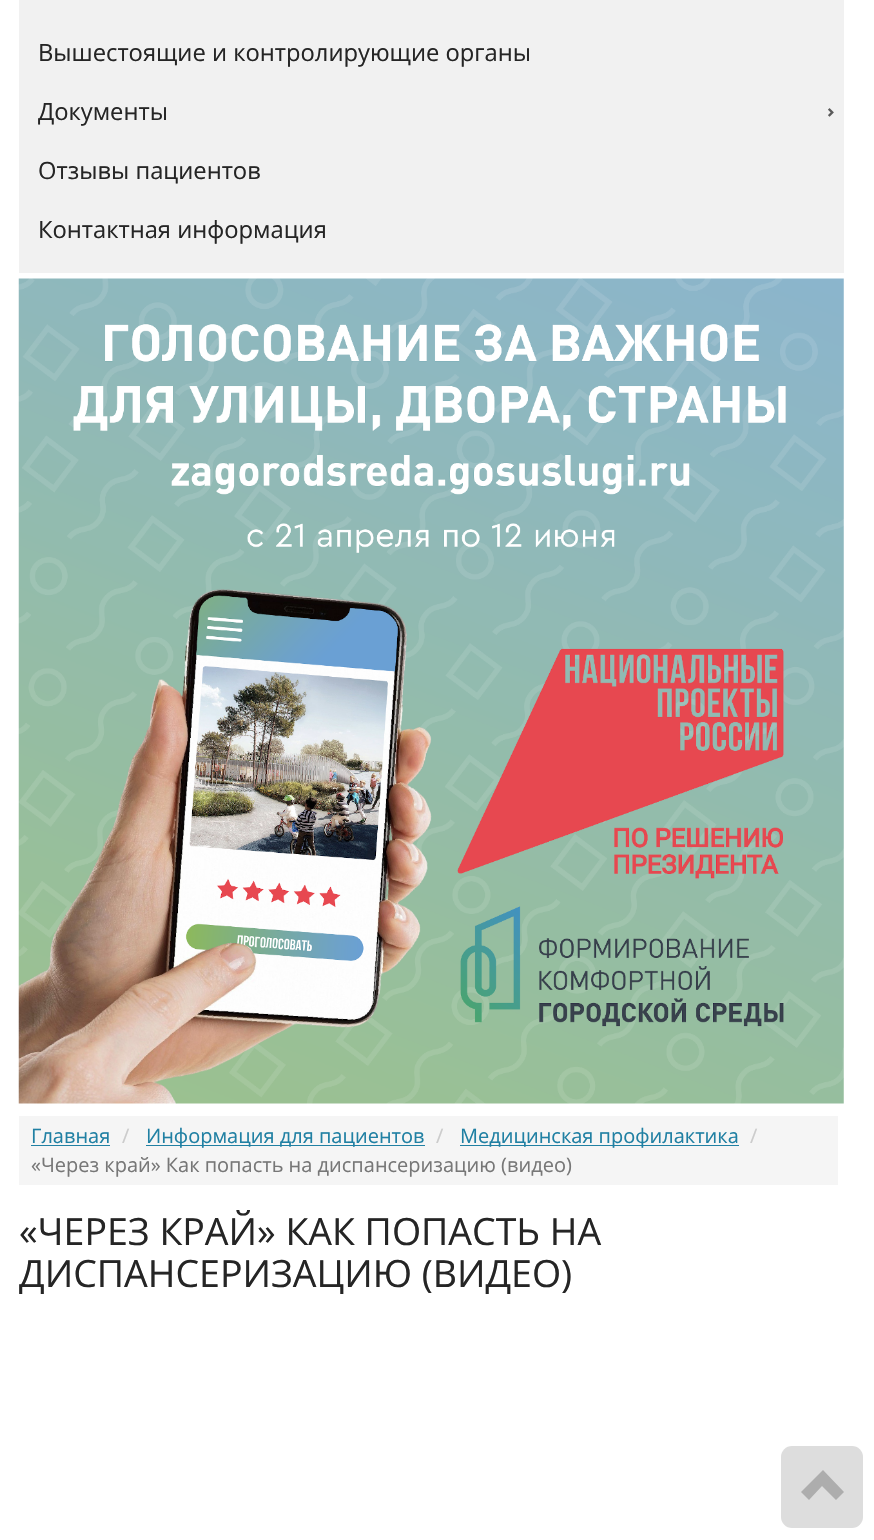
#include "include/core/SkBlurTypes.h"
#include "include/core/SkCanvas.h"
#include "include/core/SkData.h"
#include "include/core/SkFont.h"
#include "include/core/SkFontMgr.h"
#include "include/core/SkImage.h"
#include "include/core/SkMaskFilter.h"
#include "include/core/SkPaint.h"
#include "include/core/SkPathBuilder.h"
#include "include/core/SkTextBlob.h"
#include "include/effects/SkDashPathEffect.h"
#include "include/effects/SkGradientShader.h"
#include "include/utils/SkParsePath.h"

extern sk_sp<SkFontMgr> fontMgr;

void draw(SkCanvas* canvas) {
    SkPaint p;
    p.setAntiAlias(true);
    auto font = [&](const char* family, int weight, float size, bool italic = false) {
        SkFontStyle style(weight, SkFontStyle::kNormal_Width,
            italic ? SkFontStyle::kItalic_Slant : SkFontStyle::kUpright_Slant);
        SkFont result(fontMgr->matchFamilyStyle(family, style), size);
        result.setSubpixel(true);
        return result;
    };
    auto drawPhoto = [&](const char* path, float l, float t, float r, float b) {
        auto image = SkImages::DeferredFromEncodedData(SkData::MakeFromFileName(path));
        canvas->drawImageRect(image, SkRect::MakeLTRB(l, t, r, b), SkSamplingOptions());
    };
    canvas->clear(0xFFFFFFFF);
    p.setColor(0xFFF1F1F1);
    canvas->drawRect(SkRect::MakeLTRB(19, 0, 844, 273), p);
    auto font1 = font("Open Sans", 400, 23.75f);
    p.setColor(0xFF252525);
    canvas->drawString("Вышестоящие и контролирующие органы", 38, 61, font1, p);
    canvas->drawString("Документы", 38, 120, font1, p);
    drawPhoto("media/1.png", 828, 108, 834, 117);
    canvas->drawString("Отзывы пациентов", 38, 179, font1, p);
    canvas->drawString("Контактная информация", 38, 238, font1, p);
    drawPhoto("media/2.png", 18, 278, 844, 1104);
    p.setColor(0xFFF5F5F5);
    canvas->drawRect(SkRect::MakeLTRB(19, 1116, 838, 1185), p);
    auto font2 = font("Open Sans", 400, 20);
    p.setColor(0xFF2080A3);
    canvas->drawString("Главная", 31, 1143, font2, p);
    canvas->drawRect(SkRect::MakeLTRB(31, 1145, 110, 1146), p);
    p.setColor(0xFFCCCCCC);
    canvas->drawString("/", 122, 1143, font2, p);
    p.setColor(0xFF2080A3);
    canvas->drawRect(SkRect::MakeLTRB(146, 1145, 425, 1146), p);
    canvas->drawString("Информация для пациентов", 146, 1143, font2, p);
    p.setColor(0xFFCCCCCC);
    canvas->drawString("/", 436, 1143, font2, p);
    p.setColor(0xFF2080A3);
    canvas->drawRect(SkRect::MakeLTRB(460, 1145, 739, 1146), p);
    canvas->drawString("Медицинская профилактика", 460, 1143, font2, p);
    p.setColor(0xFFCCCCCC);
    canvas->drawString("/", 750, 1143, font2, p);
    p.setColor(0xFF777777);
    canvas->drawString("«Через край» Как попасть на диспансеризацию (видео)", 31, 1172, font2, p);
    auto font3 = font("Open Sans", 400, 37.5f);
    p.setColor(0xFF252525);
    canvas->drawString("«ЧЕРЕЗ КРАЙ» КАК ПОПАСТЬ НА", 19, 1245, font3, p);
    canvas->drawString("ДИСПАНСЕРИЗАЦИЮ (ВИДЕО)", 19, 1287, font3, p);
    p.setColor(0xFFDDDDDD);
    canvas->drawRoundRect(SkRect::MakeLTRB(781, 1446, 863, 1528), 11, 11, p);
    p.setColor(0xFFADADAD);
    canvas->drawPath(SkPathBuilder().moveTo(801, 1492).lineTo(823, 1470).lineTo(844, 1492).lineTo(836, 1500).lineTo(822, 1486).lineTo(809, 1500).close().detach(), p);
}
